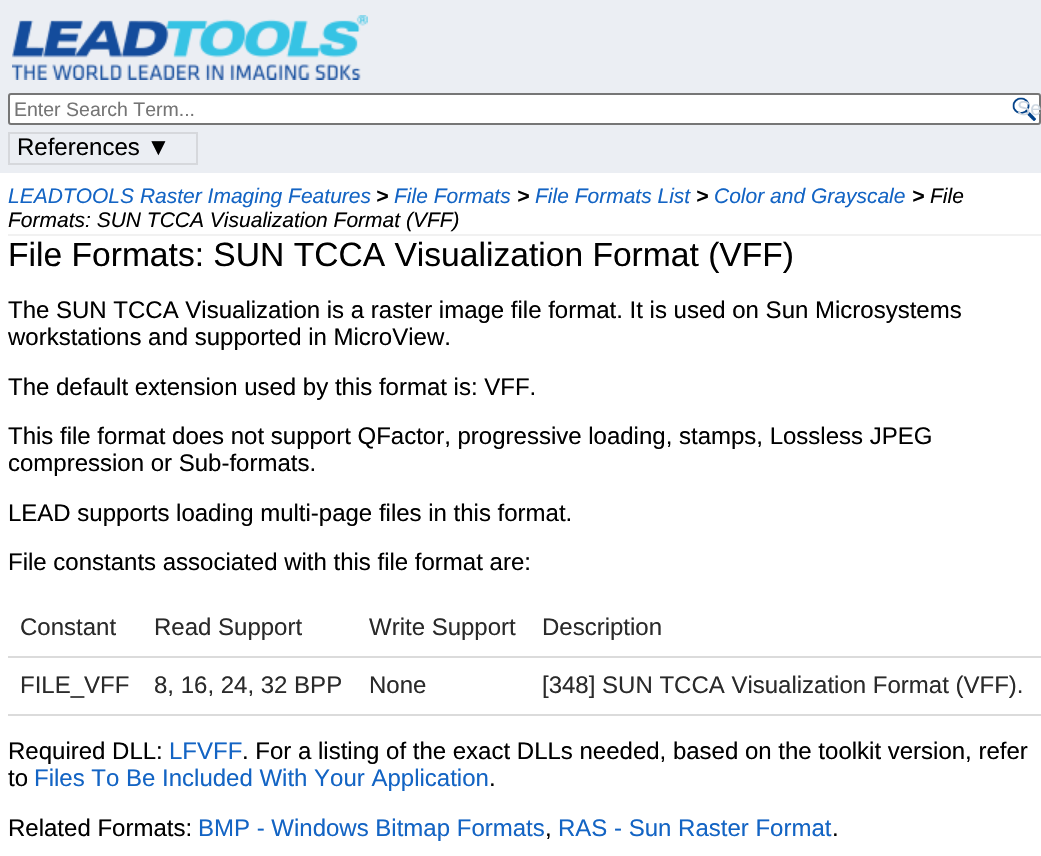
#include "include/core/SkBlurTypes.h"
#include "include/core/SkCanvas.h"
#include "include/core/SkData.h"
#include "include/core/SkFont.h"
#include "include/core/SkFontMgr.h"
#include "include/core/SkImage.h"
#include "include/core/SkMaskFilter.h"
#include "include/core/SkPaint.h"
#include "include/core/SkPathBuilder.h"
#include "include/core/SkTextBlob.h"
#include "include/effects/SkDashPathEffect.h"
#include "include/effects/SkGradientShader.h"
#include "include/utils/SkParsePath.h"

extern sk_sp<SkFontMgr> fontMgr;

void draw(SkCanvas* canvas) {
    SkPaint p;
    p.setAntiAlias(true);
    auto font = [&](const char* family, int weight, float size, bool italic = false) {
        SkFontStyle style(weight, SkFontStyle::kNormal_Width,
            italic ? SkFontStyle::kItalic_Slant : SkFontStyle::kUpright_Slant);
        SkFont result(fontMgr->matchFamilyStyle(family, style), size);
        result.setSubpixel(true);
        return result;
    };
    auto drawPhoto = [&](const char* path, float l, float t, float r, float b) {
        auto image = SkImages::DeferredFromEncodedData(SkData::MakeFromFileName(path));
        canvas->drawImageRect(image, SkRect::MakeLTRB(l, t, r, b), SkSamplingOptions());
    };
    canvas->clear(0xFFFFFFFF);
    p.setColor(0xFFEBEEF3);
    canvas->drawRect(SkRect::MakeLTRB(0, 0, 1041, 173), p);
    drawPhoto("media/1.png", 12, 15, 368, 80);
    p.setColor(0xFFFFFFFF);
    canvas->drawRoundRect(SkRect::MakeLTRB(9, 94, 1040, 124), 2, 2, p);
    p.setStyle(SkPaint::kStroke_Style);
    p.setStrokeWidth(2);
    p.setColor(0xFF767676);
    canvas->drawRoundRect(SkRect::MakeLTRB(9, 94, 1040, 124), 2, 2, p);
    auto font1 = font("Liberation Sans", 400, 19.5f);
    p.setStyle(SkPaint::kFill_Style);
    p.setColor(0xFF757575);
    canvas->drawString("Enter Search Term...", 14, 116, font1, p);
    drawPhoto("media/2.png", 1012, 97, 1036, 121);
    auto font2 = font("Liberation Sans", 400, 20);
    p.setColor(0xFFCED8E2);
    canvas->drawString("Se", 1017, 115, font2, p);
    p.setStyle(SkPaint::kStroke_Style);
    p.setColor(0xFFD6D8DC);
    canvas->drawRect(SkRect::MakeLTRB(9, 133, 197, 164), p);
    auto font3 = font("Liberation Sans", 400, 24);
    p.setStyle(SkPaint::kFill_Style);
    p.setColor(0xFF000000);
    canvas->drawString("References ▼", 17, 155, font3, p);
    p.setColor(0xFFF1F1F1);
    canvas->drawRect(SkRect::MakeLTRB(8, 234, 1041, 236), p);
    auto font4 = font("Liberation Sans", 400, 21, true);
    p.setColor(0xFF1364C4);
    canvas->drawString("LEADTOOLS Raster Imaging Features", 8, 203, font4, p);
    auto font5 = font("Liberation Sans", 700, 21, true);
    p.setColor(0xFF000000);
    canvas->drawString(">", 376, 203, font5, p);
    p.setColor(0xFF1364C4);
    canvas->drawString("File Formats", 394, 203, font4, p);
    p.setColor(0xFF000000);
    canvas->drawString(">", 517, 203, font5, p);
    p.setColor(0xFF1364C4);
    canvas->drawString("File Formats List", 535, 203, font4, p);
    p.setColor(0xFF000000);
    canvas->drawString(">", 696, 203, font5, p);
    p.setColor(0xFF1364C4);
    canvas->drawString("Color and Grayscale", 714, 203, font4, p);
    p.setColor(0xFF000000);
    canvas->drawString(">", 912, 203, font5, p);
    canvas->drawString("File", 930, 203, font4, p);
    canvas->drawString("Formats: SUN TCCA Visualization Format (VFF)", 8, 227, font4, p);
    auto font6 = font("Liberation Sans", 400, 33.6f);
    canvas->drawString("File Formats: SUN TCCA Visualization Format (VFF)", 8, 266, font6, p);
    {
        const struct { const char* s; float x, y; } items[] = {
            {"The SUN TCCA Visualization is a raster image file format. It is used on Sun Microsystems", 8, 318},
            {"workstations and supported in MicroView.", 8, 345},
            {"The default extension used by this format is: VFF.", 8, 395},
            {"This file format does not support QFactor, progressive loading, stamps, Lossless JPEG", 8, 444},
            {"compression or Sub-formats.", 8, 471},
            {"LEAD supports loading multi-page files in this format.", 8, 521},
            {"File constants associated with this file format are:", 8, 570},
        };
        for (auto [s, x, y] : items) {
            canvas->drawString(s, x, y, font3, p);
        }
    }
    p.setColor(0xFF2A2A2A);
    {
        const struct { const char* s; float x, y; } items[] = {
            {"Constant", 20, 635},
            {"Read Support", 154, 635},
            {"Write Support", 369, 635},
        };
        for (auto [s, x, y] : items) {
            canvas->drawString(s, x, y, font3, p);
        }
    }
    p.setColor(0xFFDBDBDB);
    canvas->drawRect(SkRect::MakeLTRB(8, 656, 1041, 658), p);
    p.setColor(0xFF2A2A2A);
    {
        const struct { const char* s; float x, y; } items[] = {
            {"Description", 542, 635},
            {"FILE_VFF", 20, 693},
            {"8, 16, 24, 32 BPP", 154, 693},
            {"None", 369, 693},
        };
        for (auto [s, x, y] : items) {
            canvas->drawString(s, x, y, font3, p);
        }
    }
    p.setColor(0xFFDBDBDB);
    canvas->drawRect(SkRect::MakeLTRB(8, 714, 1041, 716), p);
    p.setColor(0xFF2A2A2A);
    canvas->drawString("[348] SUN TCCA Visualization Format (VFF).", 542, 693, font3, p);
    p.setColor(0xFF000000);
    canvas->drawString("Required DLL:", 8, 759, font3, p);
    p.setColor(0xFF1364C4);
    canvas->drawString("LFVFF", 169, 759, font3, p);
    p.setColor(0xFF000000);
    canvas->drawString(". For a listing of the exact DLLs needed, based on the toolkit version, refer", 242, 759, font3, p);
    canvas->drawString("to", 8, 786, font3, p);
    p.setColor(0xFF1364C4);
    canvas->drawString("Files To Be Included With Your Application", 34, 786, font3, p);
    p.setColor(0xFF000000);
    canvas->drawString(".", 489, 786, font3, p);
    canvas->drawString("Related Formats:", 8, 836, font3, p);
    p.setColor(0xFF1364C4);
    canvas->drawString("BMP - Windows Bitmap Formats", 198, 836, font3, p);
    p.setColor(0xFF000000);
    canvas->drawString(",", 545, 836, font3, p);
    p.setColor(0xFF1364C4);
    canvas->drawString("RAS - Sun Raster Format", 558, 836, font3, p);
    p.setColor(0xFF000000);
    canvas->drawString(".", 832, 836, font3, p);
}
